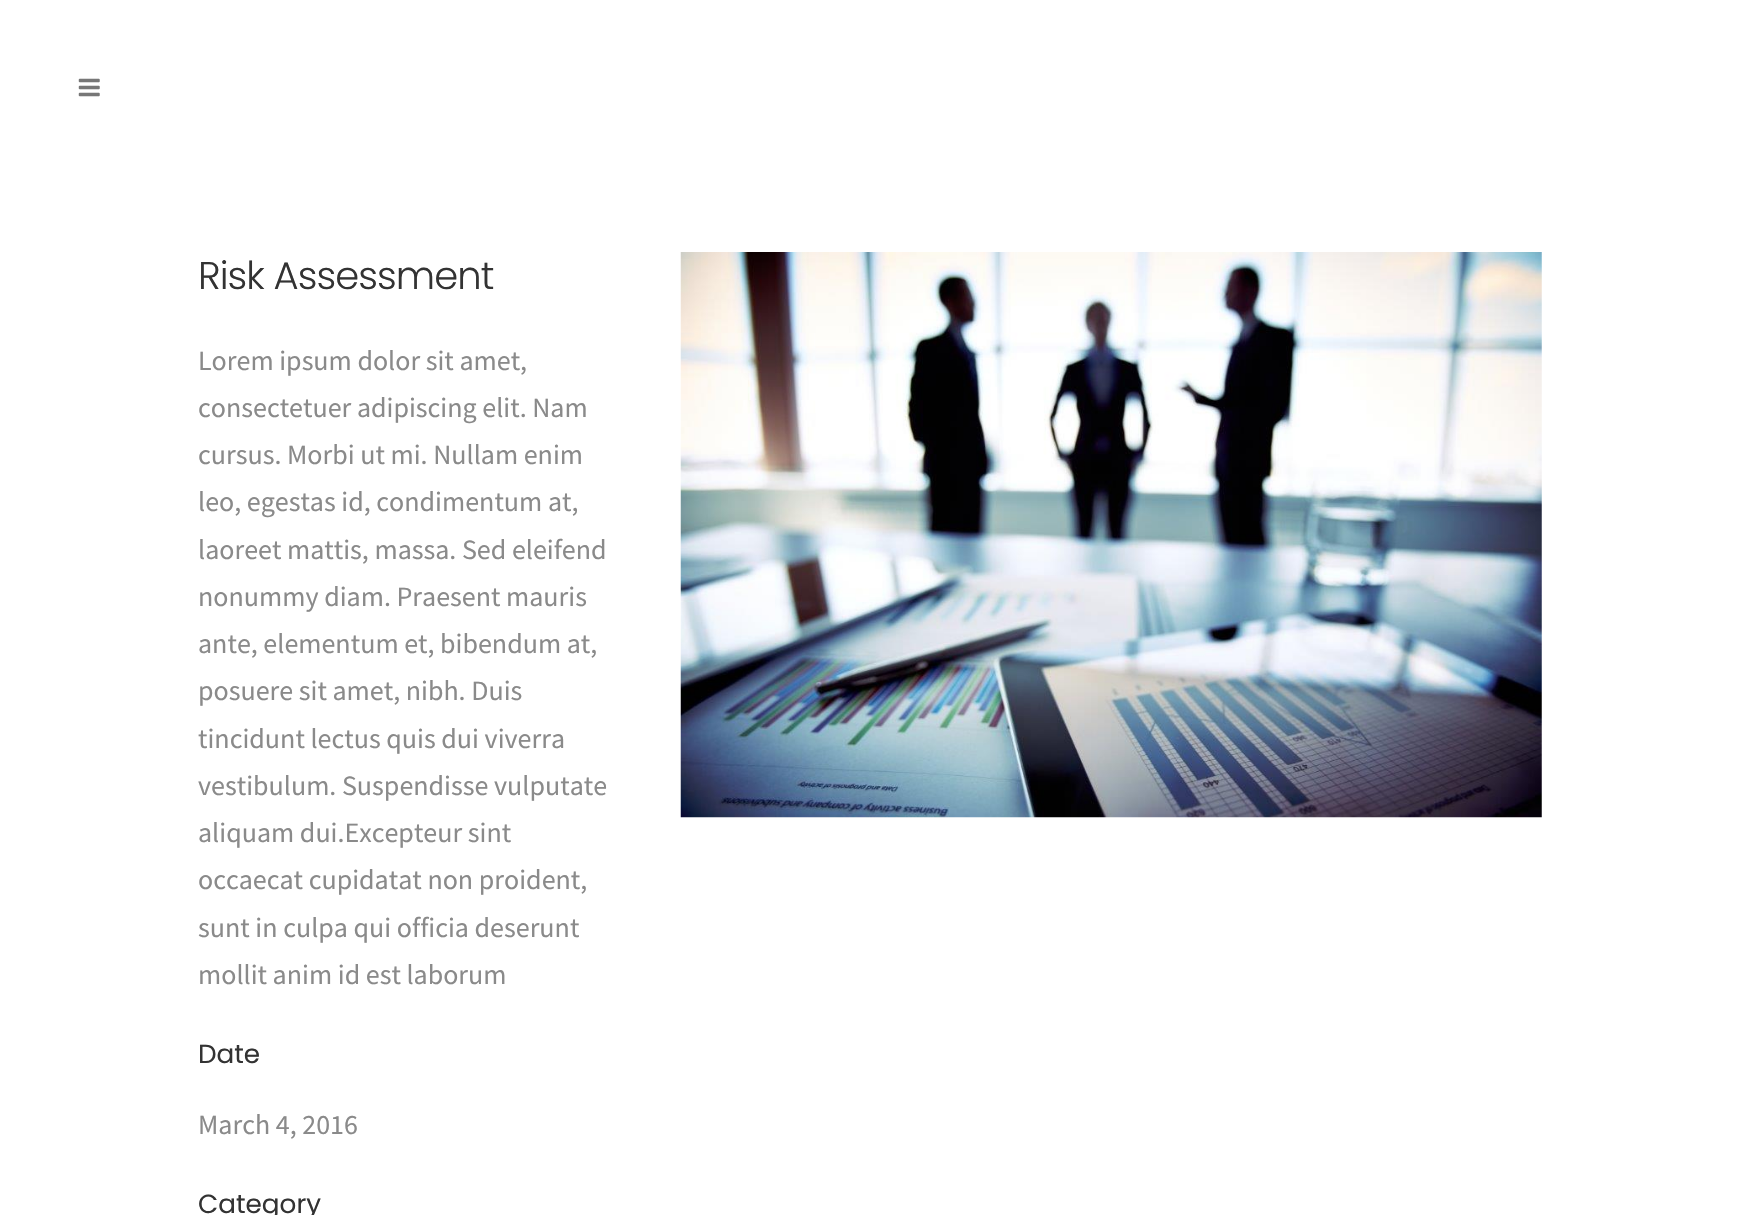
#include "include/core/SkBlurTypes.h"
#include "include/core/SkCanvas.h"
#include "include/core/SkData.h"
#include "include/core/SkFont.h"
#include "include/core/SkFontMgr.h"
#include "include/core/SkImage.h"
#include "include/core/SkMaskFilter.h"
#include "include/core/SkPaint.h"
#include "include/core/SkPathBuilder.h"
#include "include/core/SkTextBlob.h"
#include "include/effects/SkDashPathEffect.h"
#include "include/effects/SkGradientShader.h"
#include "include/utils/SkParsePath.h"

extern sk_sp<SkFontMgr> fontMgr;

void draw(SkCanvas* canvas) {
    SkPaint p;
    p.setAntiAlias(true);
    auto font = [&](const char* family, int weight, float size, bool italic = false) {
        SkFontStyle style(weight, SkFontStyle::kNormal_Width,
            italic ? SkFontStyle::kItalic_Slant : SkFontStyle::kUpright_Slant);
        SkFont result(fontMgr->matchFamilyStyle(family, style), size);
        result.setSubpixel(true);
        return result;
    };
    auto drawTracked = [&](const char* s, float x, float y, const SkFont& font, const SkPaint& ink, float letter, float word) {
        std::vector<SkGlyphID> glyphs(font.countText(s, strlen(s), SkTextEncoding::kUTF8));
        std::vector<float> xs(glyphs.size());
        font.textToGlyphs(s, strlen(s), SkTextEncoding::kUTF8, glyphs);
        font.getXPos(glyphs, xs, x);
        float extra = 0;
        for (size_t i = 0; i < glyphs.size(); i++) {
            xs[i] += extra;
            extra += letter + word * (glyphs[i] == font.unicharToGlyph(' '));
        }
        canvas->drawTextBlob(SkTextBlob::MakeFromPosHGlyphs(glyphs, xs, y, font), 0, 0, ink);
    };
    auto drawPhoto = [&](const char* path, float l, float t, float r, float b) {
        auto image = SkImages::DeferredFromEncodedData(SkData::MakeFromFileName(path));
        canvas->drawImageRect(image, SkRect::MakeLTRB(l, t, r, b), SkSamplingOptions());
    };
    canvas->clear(0xFFFFFFFF);
    drawPhoto("media/1.png", 78, 78, 100, 97);
    auto font1 = font("Poppins", 300, 38.5f);
    p.setColor(0xFF333333);
    drawTracked("Risk Assessment", 198, 289, font1, p, -0.9f, 0);
    auto font2 = font("Source Sans Pro", 400, 28);
    p.setColor(0xFF8A8A8A);
    {
        const struct { const char* s; float x, y; } items[] = {
            {"Lorem ipsum dolor sit amet,", 198, 370},
            {"consectetuer adipiscing elit. Nam", 198, 417},
            {"cursus. Morbi ut mi. Nullam enim", 198, 464},
            {"leo, egestas id, condimentum at,", 198, 511},
            {"laoreet mattis, massa. Sed eleifend", 198, 559},
            {"nonummy diam. Praesent mauris", 198, 606},
            {"ante, elementum et, bibendum at,", 198, 653},
            {"posuere sit amet, nibh. Duis", 198, 700},
            {"tincidunt lectus quis dui viverra", 198, 748},
            {"vestibulum. Suspendisse vulputate", 198, 795},
            {"aliquam dui.Excepteur sint", 198, 842},
            {"occaecat cupidatat non proident,", 198, 889},
            {"sunt in culpa qui officia deserunt", 198, 937},
            {"mollit anim id est laborum", 198, 984},
        };
        for (auto [s, x, y] : items) {
            canvas->drawString(s, x, y, font2, p);
        }
    }
    auto font3 = font("Poppins", 400, 26.25f);
    p.setColor(0xFF333333);
    canvas->drawString("Date", 198, 1063, font3, p);
    p.setColor(0xFF8A8A8A);
    canvas->drawString("March 4, 2016", 198, 1134, font2, p);
    p.setColor(0xFF333333);
    canvas->drawString("Category", 198, 1213, font3, p);
    drawPhoto("media/2.png", 680, 252, 1542, 818);
}
